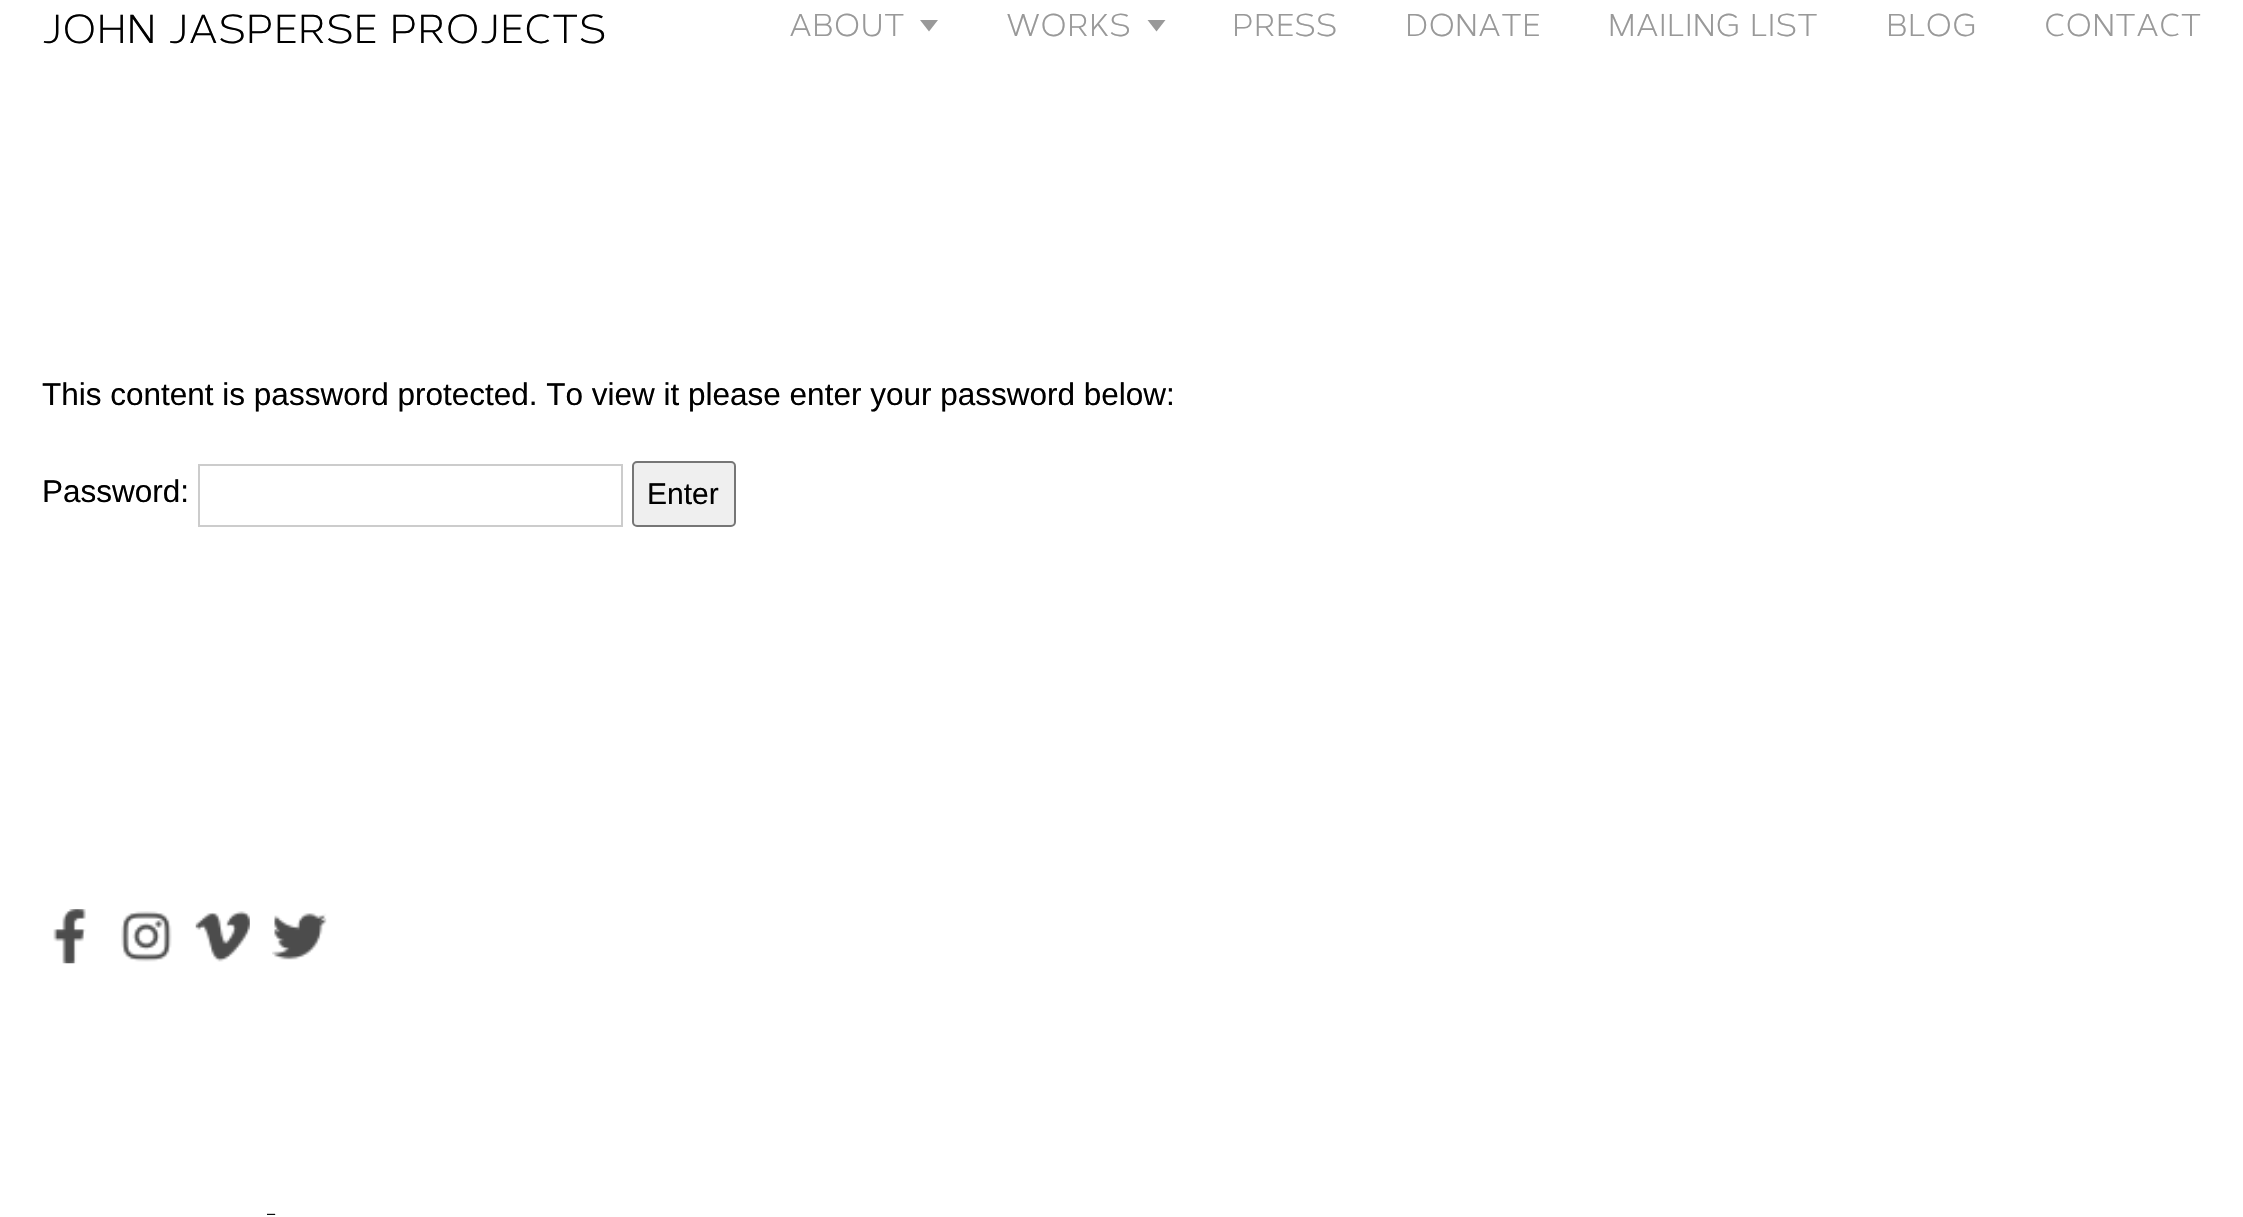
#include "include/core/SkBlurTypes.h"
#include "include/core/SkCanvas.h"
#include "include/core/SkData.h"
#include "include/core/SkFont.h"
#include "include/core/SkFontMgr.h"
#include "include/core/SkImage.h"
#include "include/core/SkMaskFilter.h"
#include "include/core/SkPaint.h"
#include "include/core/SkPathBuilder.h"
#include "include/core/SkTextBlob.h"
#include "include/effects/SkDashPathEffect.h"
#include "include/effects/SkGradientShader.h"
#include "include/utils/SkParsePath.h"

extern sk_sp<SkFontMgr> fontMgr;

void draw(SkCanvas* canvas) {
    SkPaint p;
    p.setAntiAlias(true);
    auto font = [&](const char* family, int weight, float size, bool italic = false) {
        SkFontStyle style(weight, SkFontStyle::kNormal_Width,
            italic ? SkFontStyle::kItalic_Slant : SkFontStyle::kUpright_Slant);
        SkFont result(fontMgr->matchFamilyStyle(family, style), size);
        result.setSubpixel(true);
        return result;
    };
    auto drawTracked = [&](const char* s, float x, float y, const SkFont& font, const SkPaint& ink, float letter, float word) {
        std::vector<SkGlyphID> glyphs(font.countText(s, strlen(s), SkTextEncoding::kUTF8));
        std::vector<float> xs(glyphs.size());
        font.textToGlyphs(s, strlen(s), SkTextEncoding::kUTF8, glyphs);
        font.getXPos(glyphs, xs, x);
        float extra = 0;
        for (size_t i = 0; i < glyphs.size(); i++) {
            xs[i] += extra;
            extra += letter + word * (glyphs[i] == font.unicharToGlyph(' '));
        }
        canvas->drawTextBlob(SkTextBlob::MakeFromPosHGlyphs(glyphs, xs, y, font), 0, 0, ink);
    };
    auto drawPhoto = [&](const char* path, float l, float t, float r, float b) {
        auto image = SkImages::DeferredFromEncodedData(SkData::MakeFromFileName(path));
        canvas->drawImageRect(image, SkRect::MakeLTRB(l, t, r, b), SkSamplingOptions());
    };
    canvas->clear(0xFFFFFFFF);
    auto font1 = font("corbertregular", 400, 40.5f);
    p.setColor(0xFF000000);
    canvas->drawString("JOHN JASPERSE PROJECTS", 42, 43, font1, p);
    auto font2 = font("corbertregular", 400, 31.5f);
    p.setColor(0xFF999999);
    canvas->drawString("ABOUT", 789, 36, font2, p);
    canvas->drawPath(SkPathBuilder().moveTo(920, 20).lineTo(938, 20).lineTo(929, 31.5f).close().detach(), p);
    canvas->drawString("WORKS", 1006, 36, font2, p);
    canvas->drawPath(SkPathBuilder().moveTo(1147.5f, 20).lineTo(1165.5f, 20).lineTo(1156.5f, 31.5f).close().detach(), p);
    {
        const struct { const char* s; float x, y; } items[] = {
            {"PRESS", 1232, 36},
            {"DONATE", 1405, 36},
            {"MAILING LIST", 1608, 36},
            {"BLOG", 1886, 36},
            {"CONTACT", 2044, 36},
        };
        for (auto [s, x, y] : items) {
            canvas->drawString(s, x, y, font2, p);
        }
    }
    auto font3 = font("Liberation Sans", 400, 31.5f);
    p.setColor(0xFF000000);
    canvas->drawString("This content is password protected. To view it please enter your password below:", 42, 405, font3, p);
    canvas->drawString("Password:", 42, 502, font3, p);
    p.setStyle(SkPaint::kStroke_Style);
    p.setStrokeWidth(2);
    p.setColor(0xFFCCCCCC);
    canvas->drawRect(SkRect::MakeLTRB(199, 465, 622, 526), p);
    p.setStyle(SkPaint::kFill_Style);
    p.setColor(0xFFEFEFEF);
    canvas->drawRoundRect(SkRect::MakeLTRB(633, 462, 735, 526), 4, 4, p);
    p.setStyle(SkPaint::kStroke_Style);
    p.setColor(0xFF767676);
    canvas->drawRoundRect(SkRect::MakeLTRB(633, 462, 735, 526), 4, 4, p);
    auto font4 = font("Liberation Sans", 400, 30);
    p.setStyle(SkPaint::kFill_Style);
    p.setColor(0xFF000000);
    canvas->drawString("Enter", 647, 504, font4, p);
    drawPhoto("media/1.png", 53, 909, 86, 964);
    drawPhoto("media/2.png", 121, 911, 172, 962);
    drawPhoto("media/3.png", 195, 911, 250, 962);
    drawPhoto("media/4.png", 272, 913, 327, 960);
    auto font5 = font("corbertregular", 400, 22);
    drawTracked("-", 266, 1222, font5, p, 2, 0);
}
